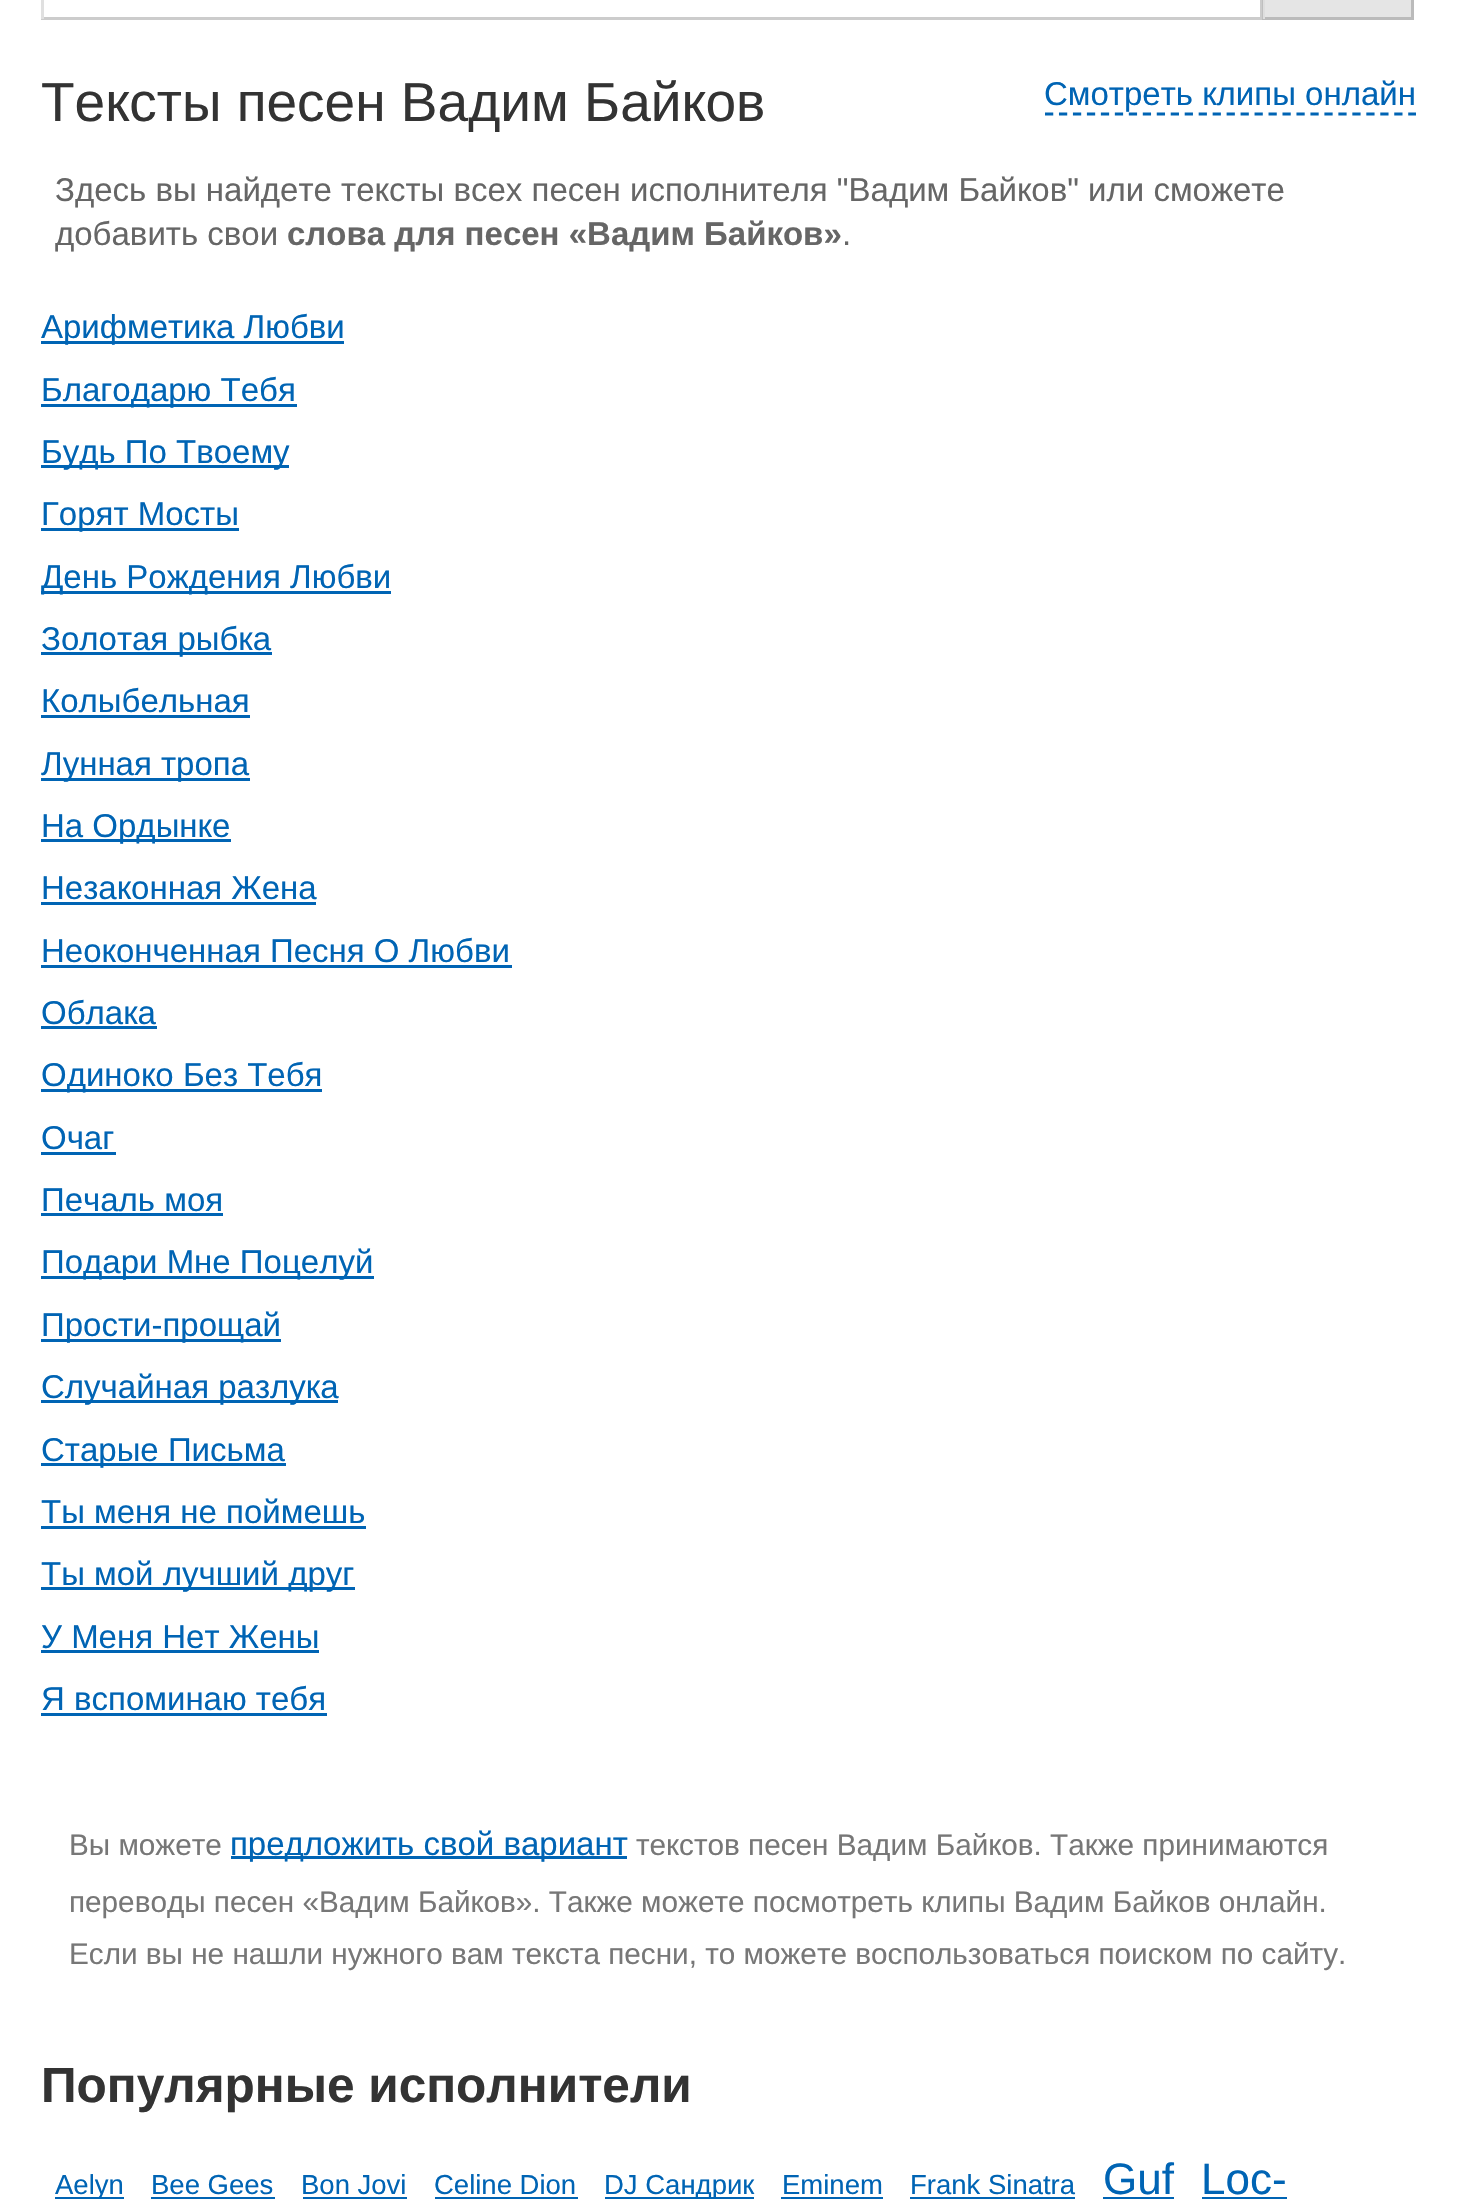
#include "include/core/SkBlurTypes.h"
#include "include/core/SkCanvas.h"
#include "include/core/SkData.h"
#include "include/core/SkFont.h"
#include "include/core/SkFontMgr.h"
#include "include/core/SkImage.h"
#include "include/core/SkMaskFilter.h"
#include "include/core/SkPaint.h"
#include "include/core/SkPathBuilder.h"
#include "include/core/SkTextBlob.h"
#include "include/effects/SkDashPathEffect.h"
#include "include/effects/SkGradientShader.h"
#include "include/utils/SkParsePath.h"

extern sk_sp<SkFontMgr> fontMgr;

void draw(SkCanvas* canvas) {
    SkPaint p;
    p.setAntiAlias(true);
    auto font = [&](const char* family, int weight, float size, bool italic = false) {
        SkFontStyle style(weight, SkFontStyle::kNormal_Width,
            italic ? SkFontStyle::kItalic_Slant : SkFontStyle::kUpright_Slant);
        SkFont result(fontMgr->matchFamilyStyle(family, style), size);
        result.setSubpixel(true);
        return result;
    };
    canvas->clear(0xFFFFFFFF);
    {
        const struct { float l, t, r, b; SkColor color; } items[] = {
            {1411, 0, 1414, 19, 0xFFBBBBBB},
            {1262, 17, 1414, 20, 0xFFBBBBBB},
            {1262, 0, 1265, 19, 0xFFDEDEDE},
            {1260, 0, 1263, 19, 0x99AAAAAA},
            {41, 17, 1262, 20, 0xFFCCCCCC},
            {41, 0, 44, 19, 0xFFE0E0E0},
            {1265, 0, 1411, 17, 0xFFE5E5E5},
        };
        for (auto [l, t, r, b, color] : items) {
            p.setColor(color);
            canvas->drawRect(SkRect::MakeLTRB(l, t, r, b), p);
        }
    }
    auto font1 = font("Liberation Sans", 400, 55);
    p.setColor(0xFF333333);
    canvas->drawString("Тексты песен Вадим Байков", 41, 121, font1, p);
    auto font2 = font("Liberation Sans", 400, 33);
    p.setColor(0xFF0064B4);
    canvas->drawString("Смотреть клипы онлайн", 1044, 105, font2, p);
    p.setStyle(SkPaint::kStroke_Style);
    p.setStrokeWidth(2.8f);
    p.setPathEffect(SkDashPathEffect::Make({{8.25f, 5.72f}}, 0));
    canvas->drawPath(SkPathBuilder().moveTo(1045, 114).lineTo(1416, 114).detach(), p);
    p.setPathEffect(nullptr);
    p.setStyle(SkPaint::kFill_Style);
    p.setColor(0xFF666666);
    canvas->drawString("Здесь вы найдете тексты всех песен исполнителя \"Вадим Байков\" или сможете", 55, 201, font2, p);
    canvas->drawString("добавить свои", 55, 245, font2, p);
    auto font3 = font("Liberation Sans", 700, 33);
    canvas->drawString("слова для песен «Вадим Байков»", 287, 245, font3, p);
    canvas->drawString(".", 842, 245, font2, p);
    p.setColor(0xFF0064B4);
    canvas->drawRect(SkRect::MakeLTRB(41, 341, 344, 344), p);
    canvas->drawString("Арифметика Любви", 41, 338, font2, p);
    canvas->drawRect(SkRect::MakeLTRB(41, 404, 297, 407), p);
    canvas->drawString("Благодарю Тебя", 41, 401, font2, p);
    canvas->drawRect(SkRect::MakeLTRB(41, 465, 289, 468), p);
    canvas->drawString("Будь По Твоему", 41, 463, font2, p);
    canvas->drawRect(SkRect::MakeLTRB(41, 528, 239, 531), p);
    canvas->drawString("Горят Мосты", 41, 525, font2, p);
    canvas->drawRect(SkRect::MakeLTRB(41, 591, 391, 594), p);
    canvas->drawString("День Рождения Любви", 41, 588, font2, p);
    canvas->drawRect(SkRect::MakeLTRB(41, 652, 272, 655), p);
    canvas->drawString("Золотая рыбка", 41, 650, font2, p);
    canvas->drawString("Колыбельная", 41, 712, font2, p);
    canvas->drawRect(SkRect::MakeLTRB(41, 715, 250, 718), p);
    canvas->drawRect(SkRect::MakeLTRB(41, 778, 250, 781), p);
    canvas->drawString("Лунная тропа", 41, 775, font2, p);
    canvas->drawRect(SkRect::MakeLTRB(41, 839, 231, 842), p);
    canvas->drawString("На Ордынке", 41, 837, font2, p);
    canvas->drawString("Незаконная Жена", 41, 899, font2, p);
    canvas->drawRect(SkRect::MakeLTRB(41, 902, 316, 905), p);
    canvas->drawString("Неоконченная Песня О Любви", 41, 962, font2, p);
    canvas->drawRect(SkRect::MakeLTRB(41, 965, 512, 968), p);
    canvas->drawString("Облака", 41, 1024, font2, p);
    canvas->drawRect(SkRect::MakeLTRB(41, 1026, 157, 1029), p);
    canvas->drawRect(SkRect::MakeLTRB(41, 1089, 322, 1092), p);
    canvas->drawString("Одиноко Без Тебя", 41, 1086, font2, p);
    canvas->drawString("Очаг", 41, 1149, font2, p);
    canvas->drawRect(SkRect::MakeLTRB(41, 1152, 116, 1155), p);
    canvas->drawString("Печаль моя", 41, 1211, font2, p);
    canvas->drawRect(SkRect::MakeLTRB(41, 1213, 223, 1216), p);
    canvas->drawRect(SkRect::MakeLTRB(41, 1276, 374, 1279), p);
    canvas->drawString("Подари Мне Поцелуй", 41, 1273, font2, p);
    canvas->drawRect(SkRect::MakeLTRB(41, 1339, 281, 1342), p);
    canvas->drawString("Прости-прощай", 41, 1336, font2, p);
    canvas->drawRect(SkRect::MakeLTRB(41, 1400, 338, 1403), p);
    canvas->drawString("Случайная разлука", 41, 1398, font2, p);
    canvas->drawRect(SkRect::MakeLTRB(41, 1463, 286, 1466), p);
    canvas->drawString("Старые Письма", 41, 1461, font2, p);
    canvas->drawString("Ты меня не поймешь", 41, 1523, font2, p);
    canvas->drawRect(SkRect::MakeLTRB(41, 1526, 366, 1529), p);
    canvas->drawRect(SkRect::MakeLTRB(41, 1587, 355, 1590), p);
    canvas->drawString("Ты мой лучший друг", 41, 1585, font2, p);
    canvas->drawString("У Меня Нет Жены", 41, 1648, font2, p);
    canvas->drawRect(SkRect::MakeLTRB(41, 1650, 319, 1653), p);
    canvas->drawString("Я вспоминаю тебя", 41, 1710, font2, p);
    canvas->drawRect(SkRect::MakeLTRB(41, 1713, 327, 1716), p);
    auto font4 = font("Liberation Sans", 400, 29.7f);
    p.setColor(0xFF777777);
    canvas->drawString("Вы можете", 69, 1855, font4, p);
    p.setColor(0xFF0064B4);
    canvas->drawRect(SkRect::MakeLTRB(231, 1856, 627, 1859), p);
    canvas->drawString("предложить свой вариант", 230, 1855, font2, p);
    p.setColor(0xFF777777);
    {
        const struct { const char* s; float x, y; } items[] = {
            {"текстов песен Вадим Байков. Также принимаются", 636, 1855},
            {"переводы песен «Вадим Байков». Также можете посмотреть клипы Вадим Байков онлайн.", 69, 1912},
            {"Если вы не нашли нужного вам текста песни, то можете воспользоваться поиском по сайту.", 69, 1964},
        };
        for (auto [s, x, y] : items) {
            canvas->drawString(s, x, y, font4, p);
        }
    }
    auto font5 = font("Liberation Sans", 700, 49.5f);
    p.setColor(0xFF333333);
    canvas->drawString("Популярные исполнители", 41, 2102, font5, p);
    p.setColor(0xFF0064B4);
    canvas->drawRect(SkRect::MakeLTRB(55, 2197, 124, 2199), p);
    auto font6 = font("Liberation Sans", 400, 27.5f);
    canvas->drawString("Aelyn", 55, 2194, font6, p);
    canvas->drawString("Bee Gees", 151, 2194, font6, p);
    canvas->drawRect(SkRect::MakeLTRB(151, 2197, 275, 2199), p);
    canvas->drawString("Bon Jovi", 301, 2194, font6, p);
    canvas->drawRect(SkRect::MakeLTRB(303, 2197, 407, 2199), p);
    canvas->drawString("Celine Dion", 434, 2194, font6, p);
    canvas->drawRect(SkRect::MakeLTRB(435, 2197, 578, 2199), p);
    canvas->drawRect(SkRect::MakeLTRB(605, 2197, 754, 2199), p);
    canvas->drawString("DJ Сандрик", 604, 2194, font6, p);
    canvas->drawString("Eminem", 782, 2194, font6, p);
    canvas->drawRect(SkRect::MakeLTRB(781, 2197, 883, 2199), p);
    canvas->drawString("Frank Sinatra", 910, 2194, font6, p);
    canvas->drawRect(SkRect::MakeLTRB(910, 2197, 1075, 2199), p);
    auto font7 = font("Liberation Sans", 400, 44);
    canvas->drawString("Guf", 1103, 2194, font7, p);
    canvas->drawRect(SkRect::MakeLTRB(1103, 2197, 1174, 2199), p);
    canvas->drawString("Loc-", 1201, 2194, font7, p);
    canvas->drawRect(SkRect::MakeLTRB(1202, 2197, 1287, 2199), p);
}
